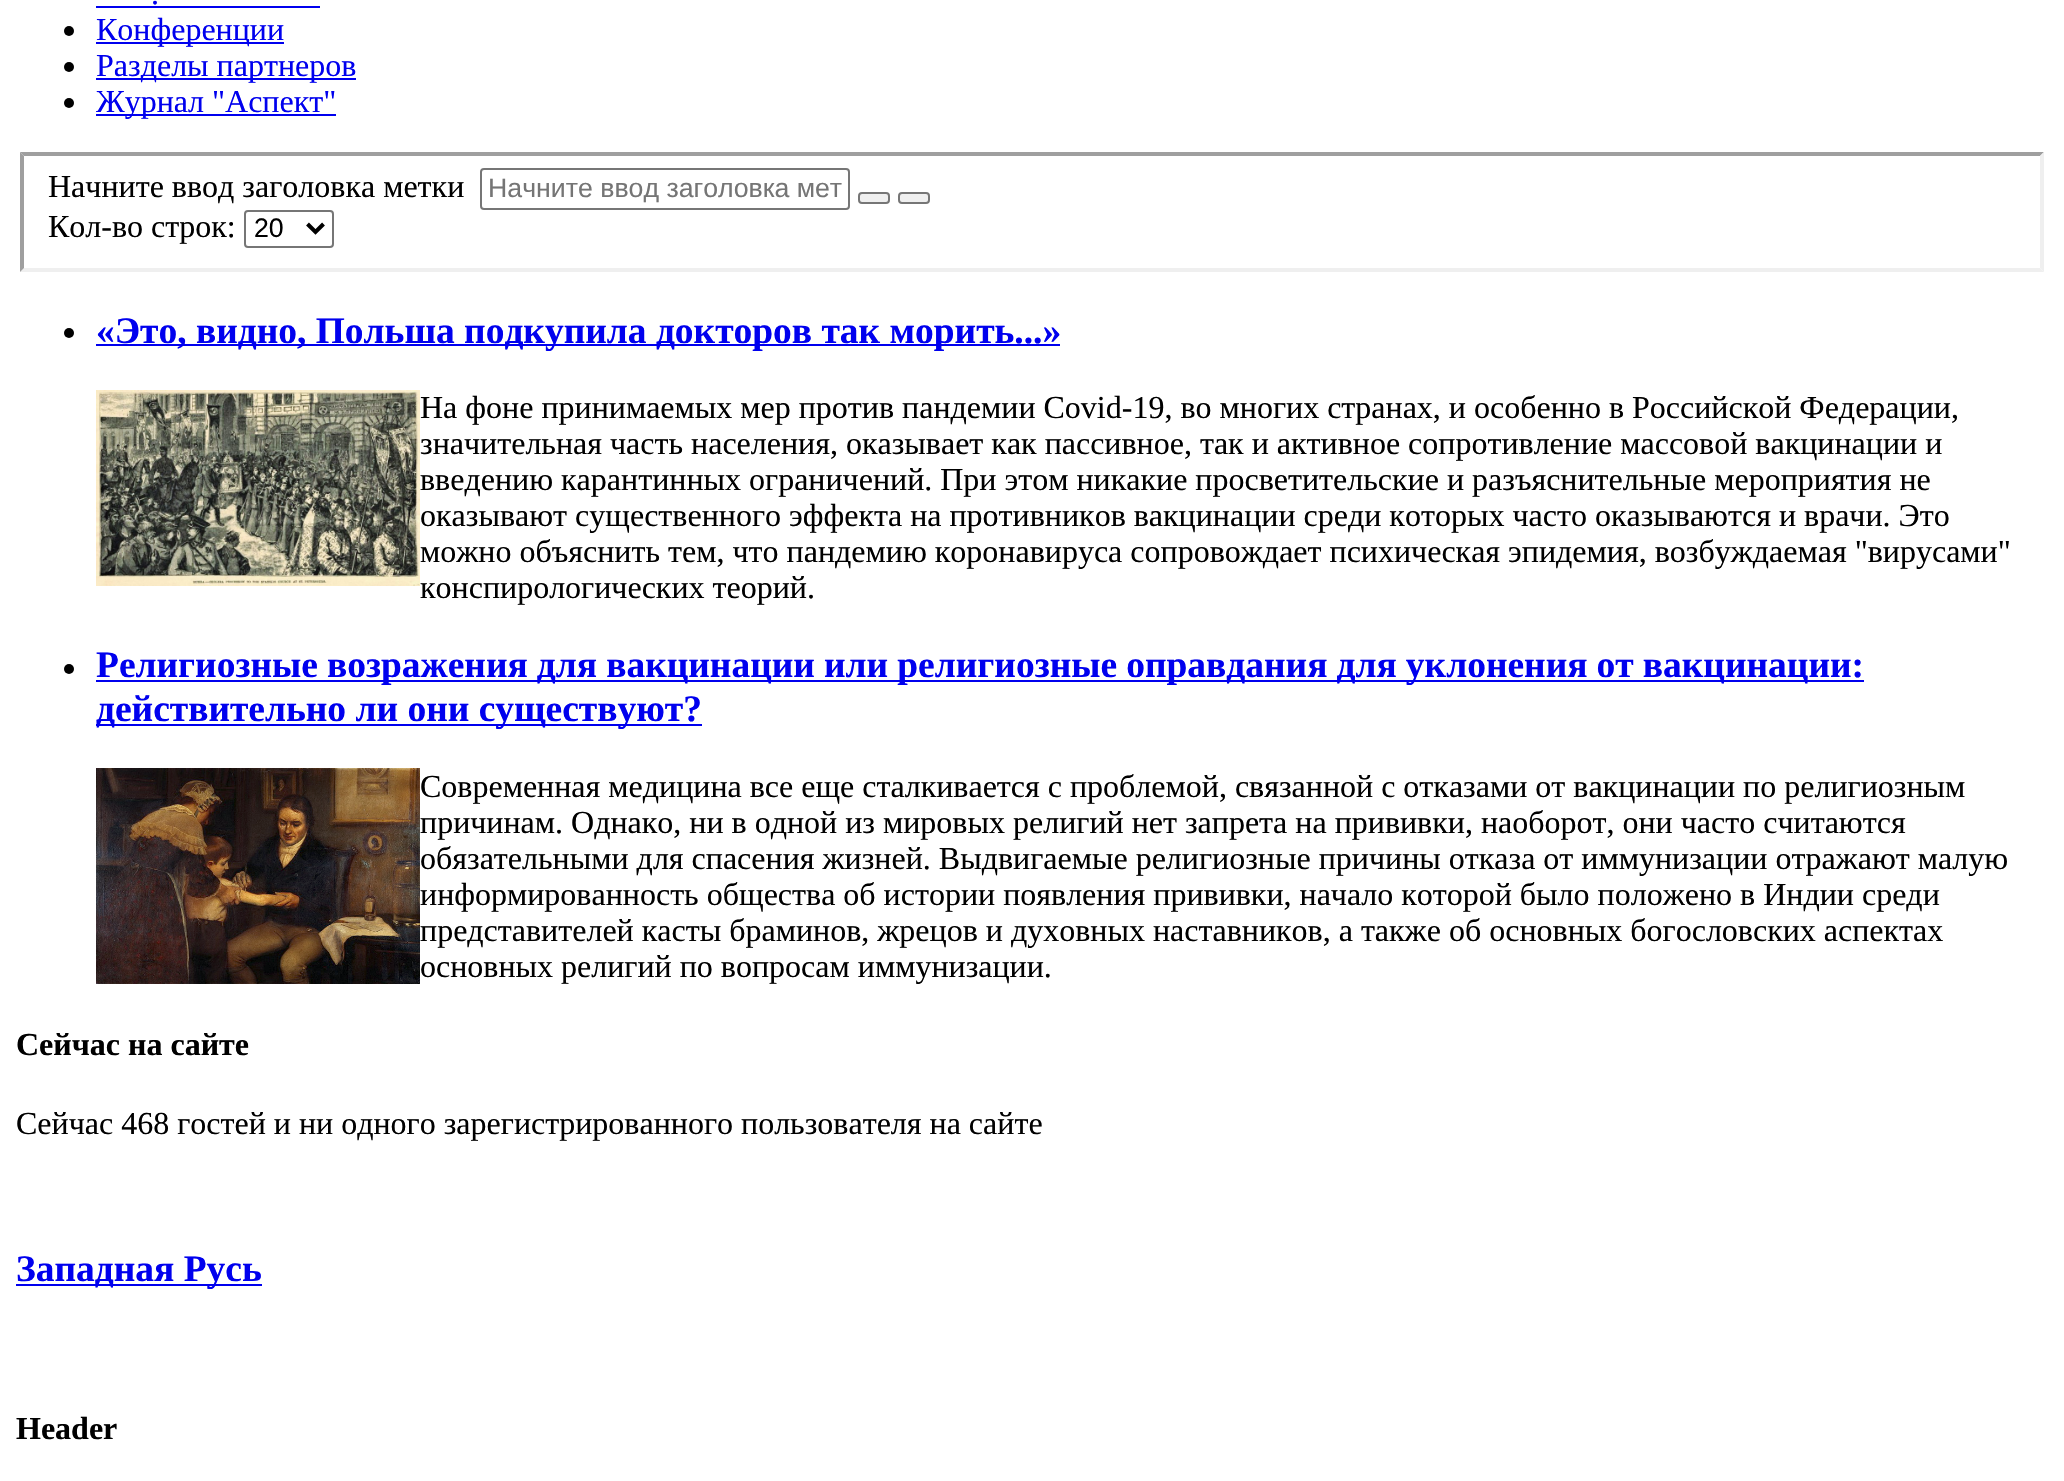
#include "include/core/SkBlurTypes.h"
#include "include/core/SkCanvas.h"
#include "include/core/SkData.h"
#include "include/core/SkFont.h"
#include "include/core/SkFontMgr.h"
#include "include/core/SkImage.h"
#include "include/core/SkMaskFilter.h"
#include "include/core/SkPaint.h"
#include "include/core/SkPathBuilder.h"
#include "include/core/SkTextBlob.h"
#include "include/effects/SkDashPathEffect.h"
#include "include/effects/SkGradientShader.h"
#include "include/utils/SkParsePath.h"

extern sk_sp<SkFontMgr> fontMgr;

void draw(SkCanvas* canvas) {
    SkPaint p;
    p.setAntiAlias(true);
    auto font = [&](const char* family, int weight, float size, bool italic = false) {
        SkFontStyle style(weight, SkFontStyle::kNormal_Width,
            italic ? SkFontStyle::kItalic_Slant : SkFontStyle::kUpright_Slant);
        SkFont result(fontMgr->matchFamilyStyle(family, style), size);
        result.setSubpixel(true);
        return result;
    };
    auto drawTracked = [&](const char* s, float x, float y, const SkFont& font, const SkPaint& ink, float letter, float word) {
        std::vector<SkGlyphID> glyphs(font.countText(s, strlen(s), SkTextEncoding::kUTF8));
        std::vector<float> xs(glyphs.size());
        font.textToGlyphs(s, strlen(s), SkTextEncoding::kUTF8, glyphs);
        font.getXPos(glyphs, xs, x);
        float extra = 0;
        for (size_t i = 0; i < glyphs.size(); i++) {
            xs[i] += extra;
            extra += letter + word * (glyphs[i] == font.unicharToGlyph(' '));
        }
        canvas->drawTextBlob(SkTextBlob::MakeFromPosHGlyphs(glyphs, xs, y, font), 0, 0, ink);
    };
    auto drawPhoto = [&](const char* path, float l, float t, float r, float b) {
        auto image = SkImages::DeferredFromEncodedData(SkData::MakeFromFileName(path));
        canvas->drawImageRect(image, SkRect::MakeLTRB(l, t, r, b), SkSamplingOptions());
    };
    canvas->clear(0xFFFFFFFF);
    auto font1 = font("Liberation Serif", 400, 32);
    p.setColor(0xFF0000EE);
    canvas->drawString(".", 151, 4, font1, p);
    canvas->drawRect(SkRect::MakeLTRB(96, 6, 320, 8), p);
    p.setColor(0xFF000000);
    canvas->drawCircle(69, 31, 5, p);
    p.setColor(0xFF0000EE);
    canvas->drawRect(SkRect::MakeLTRB(96, 42, 284, 44), p);
    canvas->drawString("Конференции", 96, 40, font1, p);
    p.setColor(0xFF000000);
    canvas->drawCircle(69, 67, 5, p);
    p.setColor(0xFF0000EE);
    canvas->drawRect(SkRect::MakeLTRB(96, 78, 356, 80), p);
    canvas->drawString("Разделы партнеров", 96, 76, font1, p);
    p.setColor(0xFF000000);
    canvas->drawCircle(69, 103, 5, p);
    p.setColor(0xFF0000EE);
    canvas->drawRect(SkRect::MakeLTRB(96, 114, 336, 116), p);
    canvas->drawString("Журнал \"Аспект\"", 96, 112, font1, p);
    p.setColor(0xFF9F9F9F);
    canvas->drawPath(SkPathBuilder().moveTo(20, 152).lineTo(2044, 152).lineTo(2040, 156).lineTo(24, 156).close().detach(), p);
    p.setColor(0xFFEFEFEF);
    canvas->drawPath(SkPathBuilder().moveTo(2044, 152).lineTo(2044, 272).lineTo(2040, 268).lineTo(2040, 156).close().detach(), p);
    canvas->drawPath(SkPathBuilder().moveTo(2044, 272).lineTo(20, 272).lineTo(24, 268).lineTo(2040, 268).close().detach(), p);
    p.setColor(0xFF9F9F9F);
    canvas->drawPath(SkPathBuilder().moveTo(20, 272).lineTo(20, 152).lineTo(24, 156).lineTo(24, 268).close().detach(), p);
    p.setColor(0xFF000000);
    canvas->drawString("Начните ввод заголовка метки", 48, 197, font1, p);
    p.setStyle(SkPaint::kStroke_Style);
    p.setStrokeWidth(2);
    p.setColor(0xFF767676);
    canvas->drawRoundRect(SkRect::MakeLTRB(481, 169, 849, 209), 3, 3, p);
    auto font2 = font("Liberation Sans", 400, 26.7f);
    p.setStyle(SkPaint::kFill_Style);
    p.setColor(0xFF757575);
    canvas->drawString("Начните ввод заголовка мет", 488, 197, font2, p);
    p.setColor(0xFFEFEFEF);
    canvas->drawRoundRect(SkRect::MakeLTRB(859, 193, 889, 203), 3, 3, p);
    p.setStyle(SkPaint::kStroke_Style);
    p.setColor(0xFF767676);
    canvas->drawRoundRect(SkRect::MakeLTRB(859, 193, 889, 203), 3, 3, p);
    p.setStyle(SkPaint::kFill_Style);
    p.setColor(0xFFEFEFEF);
    canvas->drawRoundRect(SkRect::MakeLTRB(899, 193, 929, 203), 3, 3, p);
    p.setStyle(SkPaint::kStroke_Style);
    p.setColor(0xFF767676);
    canvas->drawRoundRect(SkRect::MakeLTRB(899, 193, 929, 203), 3, 3, p);
    p.setStyle(SkPaint::kFill_Style);
    p.setColor(0xFF000000);
    canvas->drawString("Кол-во строк:", 48, 237, font1, p);
    p.setStyle(SkPaint::kStroke_Style);
    p.setColor(0xFF767676);
    canvas->drawRoundRect(SkRect::MakeLTRB(245, 211, 333, 247), 3, 3, p);
    p.setStrokeWidth(4);
    p.setColor(0xFF000000);
    canvas->drawPath(SkPathBuilder().moveTo(307.5f, 224).lineTo(315.5f, 232).lineTo(323.5f, 224).detach(), p);
    p.setStyle(SkPaint::kFill_Style);
    canvas->drawString("20", 254, 237, font2, p);
    canvas->drawCircle(69, 333, 5, p);
    p.setColor(0xFF0000EE);
    canvas->drawRect(SkRect::MakeLTRB(96, 344, 1060, 346), p);
    auto font3 = font("Liberation Serif", 700, 37.45f);
    canvas->drawString("«Это, видно, Польша подкупила докторов так морить...»", 96, 343, font3, p);
    drawPhoto("media/1.png", 96, 390, 420, 586);
    p.setColor(0xFF000000);
    {
        const struct { const char* s; float x, y; } items[] = {
            {"На фоне принимаемых мер против пандемии Covid-19, во многих странах, и особенно в Российской Федерации,", 420, 418},
            {"значительная часть населения, оказывает как пассивное, так и активное сопротивление массовой вакцинации и", 420, 454},
            {"введению карантинных ограничений. При этом никакие просветительские и разъяснительные мероприятия не", 420, 490},
            {"оказывают существенного эффекта на противников вакцинации среди которых часто оказываются и врачи. Это", 420, 526},
            {"можно объяснить тем, что пандемию коронавируса сопровождает психическая эпидемия, возбуждаемая \"вирусами\"", 420, 562},
            {"конспирологических теорий.", 420, 598},
        };
        for (auto [s, x, y] : items) {
            canvas->drawString(s, x, y, font1, p);
        }
    }
    canvas->drawCircle(69, 669, 5, p);
    p.setColor(0xFF0000EE);
    canvas->drawRect(SkRect::MakeLTRB(96, 680, 1864, 682), p);
    drawTracked("Религиозные возражения для вакцинации или религиозные оправдания для уклонения от вакцинации:", 96, 677, font3, p, 0, -0.25f);
    canvas->drawRect(SkRect::MakeLTRB(96, 724, 702, 726), p);
    canvas->drawString("действительно ли они существуют?", 96, 721, font3, p);
    drawPhoto("media/2.png", 96, 768, 420, 984);
    p.setColor(0xFF000000);
    {
        const struct { const char* s; float x, y; } items[] = {
            {"Современная медицина все еще сталкивается с проблемой, связанной с отказами от вакцинации по религиозным", 420, 797},
            {"причинам. Однако, ни в одной из мировых религий нет запрета на прививки, наоборот, они часто считаются", 420, 833},
            {"обязательными для спасения жизней. Выдвигаемые религиозные причины отказа от иммунизации отражают малую", 420, 869},
            {"информированность общества об истории появления прививки, начало которой было положено в Индии среди", 420, 905},
            {"представителей касты браминов, жрецов и духовных наставников, а также об основных богословских аспектах", 420, 941},
            {"основных религий по вопросам иммунизации.", 420, 977},
        };
        for (auto [s, x, y] : items) {
            canvas->drawString(s, x, y, font1, p);
        }
    }
    auto font4 = font("Liberation Serif", 700, 32);
    canvas->drawString("Сейчас на сайте", 16, 1055, font4, p);
    canvas->drawString("Сейчас 468 гостей и ни одного зарегистрированного пользователя на сайте", 16, 1134, font1, p);
    p.setColor(0xFF0000EE);
    canvas->drawRect(SkRect::MakeLTRB(16, 1284, 262, 1286), p);
    canvas->drawString("Западная Русь", 16, 1281, font3, p);
    p.setColor(0xFF000000);
    canvas->drawString("Header", 16, 1439, font4, p);
}
